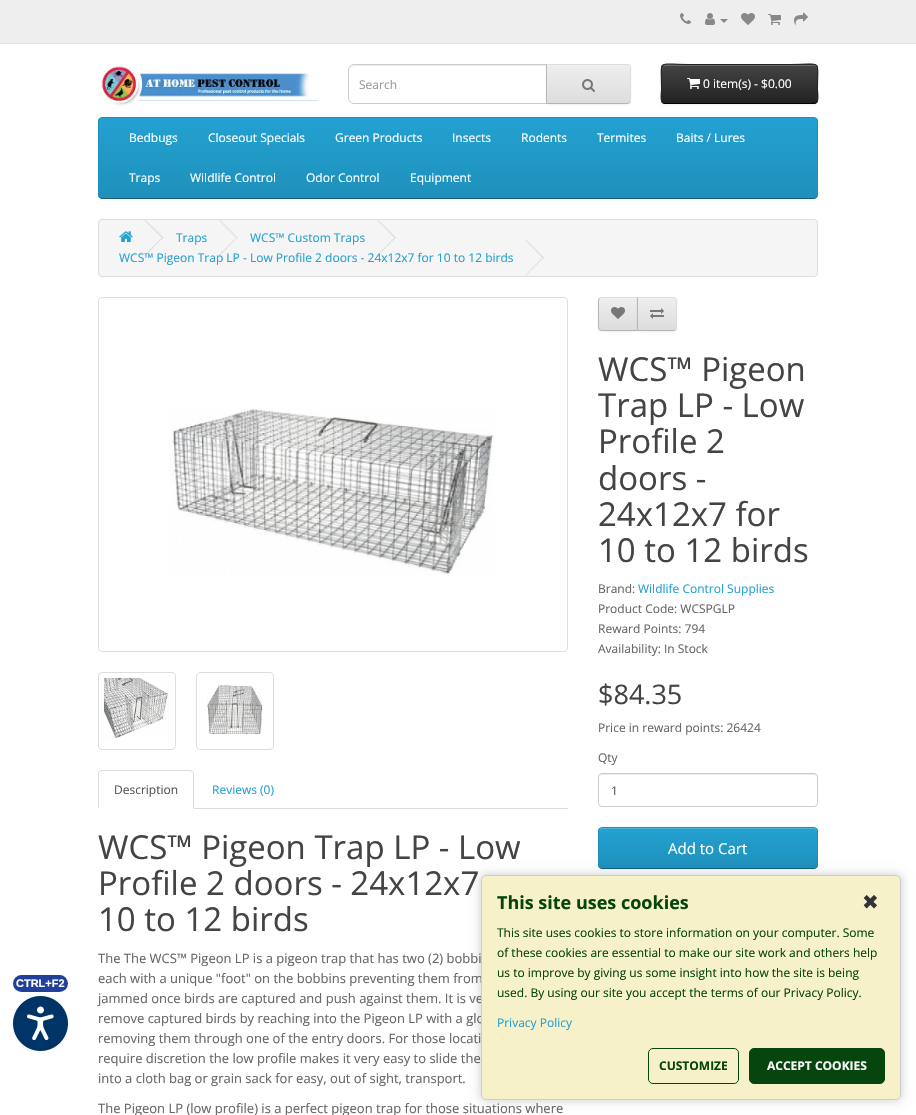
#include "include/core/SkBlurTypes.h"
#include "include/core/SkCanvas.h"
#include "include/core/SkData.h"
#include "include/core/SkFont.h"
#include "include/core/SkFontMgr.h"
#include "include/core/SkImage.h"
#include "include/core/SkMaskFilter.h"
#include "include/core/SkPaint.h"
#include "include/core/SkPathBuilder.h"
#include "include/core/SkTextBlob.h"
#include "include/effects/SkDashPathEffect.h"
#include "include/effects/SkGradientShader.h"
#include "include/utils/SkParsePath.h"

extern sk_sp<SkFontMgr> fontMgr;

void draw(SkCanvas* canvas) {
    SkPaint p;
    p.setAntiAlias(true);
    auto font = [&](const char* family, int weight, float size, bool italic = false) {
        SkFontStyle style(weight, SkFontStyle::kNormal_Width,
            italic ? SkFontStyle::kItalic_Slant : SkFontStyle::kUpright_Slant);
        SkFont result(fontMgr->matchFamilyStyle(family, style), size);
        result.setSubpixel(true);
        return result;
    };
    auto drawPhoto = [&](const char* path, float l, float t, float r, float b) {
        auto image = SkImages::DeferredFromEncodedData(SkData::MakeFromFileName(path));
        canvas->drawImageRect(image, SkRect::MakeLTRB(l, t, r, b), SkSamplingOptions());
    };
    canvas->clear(0xFFFFFFFF);
    p.setColor(0xFFEEEEEE);
    canvas->drawRect(SkRect::MakeLTRB(0, 0, 916, 43), p);
    p.setColor(0xFFE2E2E2);
    canvas->drawRect(SkRect::MakeLTRB(0, 43, 916, 44), p);
    drawPhoto("media/1.png", 680, 13, 691, 24);
    drawPhoto("media/2.png", 705, 13, 715, 25);
    p.setColor(0xFF888888);
    canvas->drawPath(SkPathBuilder().moveTo(720, 19).lineTo(728, 19).lineTo(724, 23).close().detach(), p);
    drawPhoto("media/3.png", 741, 13, 755, 25);
    drawPhoto("media/4.png", 768, 14, 781, 25);
    drawPhoto("media/5.png", 794, 12, 808, 25);
    drawPhoto("media/6.png", 101, 66, 318, 106);
    p.setColor(0xFFECECEC);
    canvas->drawPath(SkPathBuilder().moveTo(354, 66).lineTo(546, 66).lineTo(546, 65).lineTo(353, 65).cubicTo(350, 66, 349, 68, 349, 71).cubicTo(349, 68, 351, 66, 354, 66).close().detach(), p);
    p.setStyle(SkPaint::kStroke_Style);
    p.setStrokeWidth(1);
    p.setColor(0xFFCCCCCC);
    canvas->drawPath(SkPathBuilder().moveTo(354, 64.5f).lineTo(546.5f, 64.5f).lineTo(546.5f, 103.5f).lineTo(354, 103.5f).cubicTo(351, 103.5f, 348.5f, 101, 348.5f, 98).lineTo(348.5f, 70).cubicTo(348.5f, 67, 351, 64.5f, 354, 64.5f).close().detach(), p);
    auto font1 = font("Open Sans", 400, 12);
    p.setStyle(SkPaint::kFill_Style);
    p.setColor(0xFF999999);
    canvas->drawString("Search", 359, 89, font1, p);
    p.setColor(0x0D000000);
    p.setMaskFilter(SkMaskFilter::MakeBlur(kNormal_SkBlurStyle, 1));
    canvas->drawRoundRect(SkRect::MakeLTRB(546, 65, 631, 105), 4, 4, p);
    p.setMaskFilter(nullptr);
    p.setColor(0xFFE7E7E7);
    canvas->drawPath(SkPathBuilder().moveTo(546, 64).lineTo(627, 64).cubicTo(629, 64, 631, 66, 631, 68).lineTo(631, 100).cubicTo(631, 102, 629, 104, 627, 104).lineTo(546, 104).close().detach(), p);
    canvas->save();
    canvas->clipPath(SkPathBuilder().moveTo(546, 64).lineTo(627, 64).cubicTo(629, 64, 631, 66, 631, 68).lineTo(631, 100).cubicTo(631, 102, 629, 104, 627, 104).lineTo(546, 104).close().detach(), true);
    {
        const SkColor colors[] = {0xFFEEEEEE, 0xFFDDDDDD};
        const float stops[] = {0, 1};
        const SkPoint ends[] = {{589, 65}, {589, 103}};
        p.setShader(SkGradientShader::MakeLinear(ends, colors, stops, 2, SkTileMode::kClamp));
        p.setAlpha(255);
    }
    canvas->drawRect(SkRect::MakeLTRB(547, 65, 631, 103), p);
    canvas->restore();
    p.setShader(nullptr);
    p.setColor(0xFFF1F1F1);
    canvas->drawPath(SkPathBuilder().moveTo(547, 66).lineTo(627, 66).cubicTo(629, 66, 630, 67, 630, 69).lineTo(630, 68).cubicTo(630, 66, 629, 65, 627, 65).lineTo(547, 65).close().detach(), p);
    p.setColor(0xFFDDDDDD);
    canvas->drawPath(SkPathBuilder().moveTo(546, 64).lineTo(547, 65).lineTo(628, 65).lineTo(629, 66).lineTo(630, 65).lineTo(627, 64).close().detach(), p);
    canvas->drawPath(SkPathBuilder().moveTo(631, 100).lineTo(631, 68).cubicTo(631, 67, 630.5f, 66, 630, 65).lineTo(629, 66).cubicTo(630, 66, 630, 67, 630, 68).lineTo(630, 100).cubicTo(630, 101, 630, 102, 629, 102).lineTo(630, 103).cubicTo(630.5f, 102, 631, 101, 631, 100).close().detach(), p);
    p.setColor(0xFFB3B3B3);
    canvas->drawPath(SkPathBuilder().moveTo(627, 104).lineTo(630, 103).lineTo(629, 102).lineTo(628, 103).lineTo(547, 103).lineTo(546, 104).close().detach(), p);
    p.setColor(0xFFB7B7B7);
    canvas->drawPath(SkPathBuilder().moveTo(546, 64).lineTo(546, 104).lineTo(547, 103).lineTo(547, 65).close().detach(), p);
    drawPhoto("media/7.png", 582, 79, 595, 92);
    p.setColor(0x0D000000);
    p.setMaskFilter(SkMaskFilter::MakeBlur(kNormal_SkBlurStyle, 1));
    canvas->drawRoundRect(SkRect::MakeLTRB(661, 65, 818, 105), 4, 4, p);
    p.setMaskFilter(nullptr);
    p.setColor(0xFF363636);
    canvas->drawRoundRect(SkRect::MakeLTRB(661, 64, 818, 104), 4, 4, p);
    canvas->save();
    canvas->clipPath(SkPathBuilder().moveTo(665, 64).lineTo(814, 64).cubicTo(816, 64, 818, 66, 818, 68).lineTo(818, 100).cubicTo(818, 102, 816, 104, 814, 104).lineTo(665, 104).cubicTo(663, 104, 661, 102, 661, 100).lineTo(661, 68).cubicTo(661, 66, 663, 64, 665, 64).close().detach(), true);
    {
        const SkColor colors[] = {0xFF444444, 0xFF222222};
        const float stops[] = {0, 1};
        const SkPoint ends[] = {{740, 65}, {740, 103}};
        p.setShader(SkGradientShader::MakeLinear(ends, colors, stops, 2, SkTileMode::kClamp));
        p.setAlpha(255);
    }
    canvas->drawRect(SkRect::MakeLTRB(661, 65, 818, 103), p);
    canvas->restore();
    p.setShader(nullptr);
    p.setColor(0x33FFFFFF);
    canvas->drawPath(SkPathBuilder().moveTo(665, 66).lineTo(814, 66).cubicTo(816, 66, 817, 67, 817, 69).cubicTo(817, 67, 817, 66, 815, 65).lineTo(690, 65).cubicTo(682, 65, 662, 60, 662, 69).cubicTo(662, 67, 663, 66, 665, 66).close().detach(), p);
    p.setStyle(SkPaint::kStroke_Style);
    p.setColor(0xFF000000);
    canvas->drawPath(SkPathBuilder().moveTo(816.5f, 102.5f).cubicTo(816, 103, 815, 103.5f, 814, 103.5f).lineTo(665, 103.5f).cubicTo(664, 103.5f, 663, 103, 662.5f, 102.5f).detach(), p);
    p.setColor(0xFF222222);
    canvas->drawPath(SkPathBuilder().moveTo(662.5f, 102.5f).cubicTo(660, 100, 661.5f, 92, 661.5f, 89.5f).cubicTo(661.5f, 58, 656, 64.5f, 690, 64.5f).lineTo(789, 64.5f).cubicTo(823, 64.5f, 817.5f, 58, 817.5f, 89.5f).cubicTo(817.5f, 92, 819, 100, 816.5f, 102.5f).detach(), p);
    drawPhoto("media/8.png", 687, 78, 700, 89);
    p.setStyle(SkPaint::kFill_Style);
    p.setColor(0xFFFFFFFF);
    canvas->drawString("0 item(s) - $0.00", 703, 88, font1, p);
    canvas->save();
    canvas->clipPath(SkPathBuilder().moveTo(102, 117).lineTo(814, 117).cubicTo(816, 117, 818, 119, 818, 121).lineTo(818, 195).cubicTo(818, 197, 816, 199, 814, 199).lineTo(102, 199).cubicTo(100, 199, 98, 197, 98, 195).lineTo(98, 121).cubicTo(98, 119, 100, 117, 102, 117).close().detach(), true);
    {
        const SkColor colors[] = {0xFF23A1D1, 0xFF1F90BB};
        const float stops[] = {0, 1};
        const SkPoint ends[] = {{458, 118}, {458, 198}};
        p.setShader(SkGradientShader::MakeLinear(ends, colors, stops, 2, SkTileMode::kClamp));
        p.setAlpha(255);
    }
    canvas->drawRect(SkRect::MakeLTRB(98, 118, 818, 198), p);
    canvas->restore();
    p.setStyle(SkPaint::kStroke_Style);
    p.setShader(nullptr);
    p.setColor(0xFF145E7A);
    canvas->drawPath(SkPathBuilder().moveTo(816.5f, 197.5f).cubicTo(816, 198, 815, 198.5f, 814, 198.5f).lineTo(102, 198.5f).cubicTo(101, 198.5f, 100, 198, 99.5f, 197.5f).detach(), p);
    p.setColor(0xFF1F90BB);
    canvas->drawPath(SkPathBuilder().moveTo(99.5f, 197.5f).cubicTo(99, 197, 98.5f, 196, 98.5f, 195).lineTo(98.5f, 121).cubicTo(98.5f, 120, 99, 119, 99.5f, 118.5f).cubicTo(100, 118, 101, 117.5f, 102, 117.5f).lineTo(814, 117.5f).cubicTo(815, 117.5f, 816, 118, 816.5f, 118.5f).cubicTo(817, 119, 817.5f, 120, 817.5f, 121).lineTo(817.5f, 195).cubicTo(817.5f, 196, 817, 197, 816.5f, 197.5f).detach(), p);
    p.setStyle(SkPaint::kFill_Style);
    p.setColor(0xFFFFFFFF);
    {
        const struct { const char* s; float x, y; } items[] = {
            {"Bedbugs", 129, 142},
            {"Closeout Specials", 208, 142},
            {"Green Products", 335, 142},
            {"Insects", 452, 142},
            {"Rodents", 521, 142},
            {"Termites", 597, 142},
            {"Baits / Lures", 676, 142},
            {"Traps", 129, 182},
            {"Wildlife Control", 190, 182},
            {"Odor Control", 306, 182},
            {"Equipment", 410, 182},
        };
        for (auto [s, x, y] : items) {
            canvas->drawString(s, x, y, font1, p);
        }
    }
    p.setColor(0xFFF5F5F5);
    canvas->drawRoundRect(SkRect::MakeLTRB(98.5f, 219.5f, 817.5f, 276.5f), 3.5f, 3.5f, p);
    p.setStyle(SkPaint::kStroke_Style);
    p.setColor(0xFFDDDDDD);
    canvas->drawRoundRect(SkRect::MakeLTRB(98.5f, 219.5f, 817.5f, 276.5f), 3.5f, 3.5f, p);
    drawPhoto("media/9.png", 119, 231, 133, 242);
    p.setStyle(SkPaint::kFill_Style);
    canvas->drawPath(SkPathBuilder().moveTo(144, 220).lineTo(145, 219.5f).lineTo(163.5f, 237.5f).lineTo(162.5f, 238.5f).close().detach(), p);
    canvas->drawPath(SkPathBuilder().moveTo(144, 255.5f).lineTo(162.5f, 237).lineTo(163.5f, 237.5f).lineTo(145, 256).close().detach(), p);
    p.setColor(0xFF23A1D1);
    canvas->drawString("Traps", 176, 242, font1, p);
    p.setColor(0xFFDDDDDD);
    canvas->drawPath(SkPathBuilder().moveTo(218.5f, 220).lineTo(219.5f, 219.5f).lineTo(237.5f, 237.5f).lineTo(237, 238.5f).close().detach(), p);
    canvas->drawPath(SkPathBuilder().moveTo(218.5f, 255.5f).lineTo(237, 237).lineTo(237.5f, 237.5f).lineTo(219.5f, 256).close().detach(), p);
    p.setColor(0xFF23A1D1);
    canvas->drawString("WCS™ Custom Traps", 250, 242, font1, p);
    p.setColor(0xFFDDDDDD);
    canvas->drawPath(SkPathBuilder().moveTo(377, 220).lineTo(377.5f, 219.5f).lineTo(396, 237.5f).lineTo(395, 238.5f).close().detach(), p);
    canvas->drawPath(SkPathBuilder().moveTo(377, 255.5f).lineTo(395, 237).lineTo(396, 237.5f).lineTo(377.5f, 256).close().detach(), p);
    p.setColor(0xFF23A1D1);
    canvas->drawString("WCS™ Pigeon Trap LP - Low Profile 2 doors - 24x12x7 for 10 to 12 birds", 119, 262, font1, p);
    p.setColor(0xFFDDDDDD);
    canvas->drawPath(SkPathBuilder().moveTo(525, 240).lineTo(525.5f, 239.5f).lineTo(544, 257.5f).lineTo(543, 258.5f).close().detach(), p);
    canvas->drawPath(SkPathBuilder().moveTo(525, 275.5f).lineTo(543, 257).lineTo(544, 257.5f).lineTo(525.5f, 276).close().detach(), p);
    p.setColor(0x0D000000);
    p.setMaskFilter(SkMaskFilter::MakeBlur(kNormal_SkBlurStyle, 1));
    canvas->drawRoundRect(SkRect::MakeLTRB(598, 298, 638, 332), 4, 4, p);
    p.setMaskFilter(nullptr);
    canvas->save();
    canvas->clipPath(SkPathBuilder().moveTo(602, 297).lineTo(638, 297).lineTo(638, 331).lineTo(602, 331).cubicTo(600, 331, 598, 329, 598, 327).lineTo(598, 301).cubicTo(598, 299, 600, 297, 602, 297).close().detach(), true);
    {
        const SkColor colors[] = {0xFFEEEEEE, 0xFFDDDDDD};
        const float stops[] = {0, 1};
        const SkPoint ends[] = {{618, 298}, {618, 330}};
        p.setShader(SkGradientShader::MakeLinear(ends, colors, stops, 2, SkTileMode::kClamp));
        p.setAlpha(255);
    }
    canvas->drawRect(SkRect::MakeLTRB(598, 298, 637, 330), p);
    canvas->restore();
    p.setShader(nullptr);
    p.setColor(0xFFF1F1F1);
    canvas->drawPath(SkPathBuilder().moveTo(602, 299).lineTo(637, 299).lineTo(637, 298).lineTo(602, 298).cubicTo(600.5f, 298, 599, 299.5f, 599, 301).lineTo(599, 302).cubicTo(599, 300, 600, 299, 602, 299).close().detach(), p);
    p.setColor(0xFFDDDDDD);
    canvas->drawPath(SkPathBuilder().moveTo(602, 297).cubicTo(601, 297, 600, 297.5f, 599, 298).lineTo(600, 299).cubicTo(600, 298, 601, 298, 602, 298).lineTo(637, 298).lineTo(638, 297).close().detach(), p);
    p.setColor(0xFFB3B3B3);
    canvas->drawPath(SkPathBuilder().moveTo(638, 331).lineTo(637, 330).lineTo(602, 330).cubicTo(601, 330, 600, 330, 600, 329).lineTo(599, 330).cubicTo(600, 330.5f, 601, 331, 602, 331).close().detach(), p);
    p.setColor(0xFFB7B7B7);
    canvas->drawPath(SkPathBuilder().moveTo(598, 301).lineTo(598, 327).cubicTo(598, 328, 598.5f, 329, 599, 330).lineTo(600, 329).cubicTo(599, 329, 599, 328, 599, 327).lineTo(599, 301).cubicTo(599, 300, 599, 299, 600, 299).lineTo(599, 298).cubicTo(598.5f, 299, 598, 300, 598, 301).close().detach(), p);
    drawPhoto("media/10.png", 611, 307, 625, 319);
    p.setColor(0x0D000000);
    p.setMaskFilter(SkMaskFilter::MakeBlur(kNormal_SkBlurStyle, 1));
    canvas->drawRoundRect(SkRect::MakeLTRB(637, 298, 677, 332), 4, 4, p);
    p.setMaskFilter(nullptr);
    canvas->save();
    canvas->clipPath(SkPathBuilder().moveTo(637, 297).lineTo(673, 297).cubicTo(675, 297, 677, 299, 677, 301).lineTo(677, 327).cubicTo(677, 329, 675, 331, 673, 331).lineTo(637, 331).close().detach(), true);
    {
        const SkColor colors[] = {0xFFEEEEEE, 0xFFDDDDDD};
        const float stops[] = {0, 1};
        const SkPoint ends[] = {{657, 298}, {657, 330}};
        p.setShader(SkGradientShader::MakeLinear(ends, colors, stops, 2, SkTileMode::kClamp));
        p.setAlpha(255);
    }
    canvas->drawRect(SkRect::MakeLTRB(638, 298, 677, 330), p);
    canvas->restore();
    p.setShader(nullptr);
    p.setColor(0xFFF1F1F1);
    canvas->drawPath(SkPathBuilder().moveTo(638, 299).lineTo(673, 299).cubicTo(675, 299, 676, 300, 676, 302).lineTo(676, 301).cubicTo(676, 299.5f, 674.5f, 298, 673, 298).lineTo(638, 298).close().detach(), p);
    p.setColor(0xFFDDDDDD);
    canvas->drawPath(SkPathBuilder().moveTo(637, 297).lineTo(638, 298).lineTo(673, 298).cubicTo(674, 298, 675, 298, 675, 299).lineTo(676, 298).cubicTo(675, 297.5f, 674, 297, 673, 297).close().detach(), p);
    canvas->drawPath(SkPathBuilder().moveTo(677, 327).lineTo(677, 301).cubicTo(677, 300, 676.5f, 299, 676, 298).lineTo(675, 299).cubicTo(676, 299, 676, 300, 676, 301).lineTo(676, 327).cubicTo(676, 328, 676, 329, 675, 329).lineTo(676, 330).cubicTo(676.5f, 329, 677, 328, 677, 327).close().detach(), p);
    p.setColor(0xFFB3B3B3);
    canvas->drawPath(SkPathBuilder().moveTo(673, 331).cubicTo(674, 331, 675, 330.5f, 676, 330).lineTo(675, 329).cubicTo(675, 330, 674, 330, 673, 330).lineTo(638, 330).lineTo(637, 331).close().detach(), p);
    p.setColor(0xFFB7B7B7);
    canvas->drawPath(SkPathBuilder().moveTo(637, 297).lineTo(637, 331).lineTo(638, 330).lineTo(638, 298).close().detach(), p);
    drawPhoto("media/11.png", 650, 308, 664, 319);
    auto font2 = font("Open Sans", 400, 33);
    p.setColor(0xFF444444);
    {
        const struct { const char* s; float x, y; } items[] = {
            {"WCS™ Pigeon", 598, 381},
            {"Trap LP - Low", 598, 417},
            {"Profile 2", 598, 453},
            {"doors -", 598, 490},
            {"24x12x7 for", 598, 526},
            {"10 to 12 birds", 598, 562},
        };
        for (auto [s, x, y] : items) {
            canvas->drawString(s, x, y, font2, p);
        }
    }
    p.setColor(0xFF666666);
    canvas->drawString("Brand:", 598, 593, font1, p);
    p.setColor(0xFF23A1D1);
    canvas->drawString("Wildlife Control Supplies", 638, 593, font1, p);
    p.setColor(0xFF666666);
    {
        const struct { const char* s; float x, y; } items[] = {
            {"Product Code: WCSPGLP", 598, 613},
            {"Reward Points: 794", 598, 633},
            {"Availability: In Stock", 598, 653},
        };
        for (auto [s, x, y] : items) {
            canvas->drawString(s, x, y, font1, p);
        }
    }
    auto font3 = font("Open Sans", 400, 27);
    p.setColor(0xFF444444);
    canvas->drawString("$84.35", 598, 704, font3, p);
    p.setColor(0xFF666666);
    canvas->drawString("Price in reward points: 26424", 598, 732, font1, p);
    canvas->drawString("Qty", 598, 762, font1, p);
    p.setColor(0xFFECECEC);
    canvas->drawPath(SkPathBuilder().moveTo(602, 775).lineTo(814, 775).cubicTo(816, 775, 817, 776, 817, 778).lineTo(817, 777).cubicTo(817, 775, 816, 774, 814, 774).lineTo(602, 774).cubicTo(600, 774, 599, 775, 599, 777).lineTo(599, 778).cubicTo(599, 776, 600, 775, 602, 775).close().detach(), p);
    p.setStyle(SkPaint::kStroke_Style);
    p.setColor(0xFFCCCCCC);
    canvas->drawRoundRect(SkRect::MakeLTRB(598.5f, 773.5f, 817.5f, 806.5f), 3.5f, 3.5f, p);
    p.setStyle(SkPaint::kFill_Style);
    p.setColor(0xFF555555);
    canvas->drawString("1", 611, 795, font1, p);
    p.setColor(0x0D000000);
    p.setMaskFilter(SkMaskFilter::MakeBlur(kNormal_SkBlurStyle, 1));
    canvas->drawRoundRect(SkRect::MakeLTRB(598, 828, 818, 870), 4, 4, p);
    p.setMaskFilter(nullptr);
    canvas->save();
    canvas->clipPath(SkPathBuilder().moveTo(602, 827).lineTo(814, 827).cubicTo(816, 827, 818, 829, 818, 831).lineTo(818, 865).cubicTo(818, 867, 816, 869, 814, 869).lineTo(602, 869).cubicTo(600, 869, 598, 867, 598, 865).lineTo(598, 831).cubicTo(598, 829, 600, 827, 602, 827).close().detach(), true);
    {
        const SkColor colors[] = {0xFF23A1D1, 0xFF1F90BB};
        const float stops[] = {0, 1};
        const SkPoint ends[] = {{708, 828}, {708, 868}};
        p.setShader(SkGradientShader::MakeLinear(ends, colors, stops, 2, SkTileMode::kClamp));
        p.setAlpha(255);
    }
    canvas->drawRect(SkRect::MakeLTRB(598, 828, 818, 868), p);
    canvas->restore();
    p.setShader(nullptr);
    p.setColor(0xFF4FB4DA);
    canvas->drawPath(SkPathBuilder().moveTo(602, 829).lineTo(814, 829).cubicTo(816, 829, 817, 830, 817, 832).lineTo(817, 831).cubicTo(817, 829, 816, 828, 814, 828).lineTo(602, 828).cubicTo(600, 828, 599, 829, 599, 831).lineTo(599, 832).cubicTo(599, 830, 600, 829, 602, 829).close().detach(), p);
    p.setStyle(SkPaint::kStroke_Style);
    p.setColor(0xFF145E7A);
    canvas->drawPath(SkPathBuilder().moveTo(816.5f, 867.5f).cubicTo(816, 868, 815, 868.5f, 814, 868.5f).lineTo(602, 868.5f).cubicTo(601, 868.5f, 600, 868, 599.5f, 867.5f).detach(), p);
    p.setColor(0xFF1F90BB);
    canvas->drawPath(SkPathBuilder().moveTo(599.5f, 867.5f).cubicTo(599, 867, 598.5f, 866, 598.5f, 865).lineTo(598.5f, 831).cubicTo(598.5f, 830, 599, 829, 599.5f, 828.5f).cubicTo(600, 828, 601, 827.5f, 602, 827.5f).lineTo(814, 827.5f).cubicTo(815, 827.5f, 816, 828, 816.5f, 828.5f).cubicTo(817, 829, 817.5f, 830, 817.5f, 831).lineTo(817.5f, 865).cubicTo(817.5f, 866, 817, 867, 816.5f, 867.5f).detach(), p);
    auto font4 = font("Open Sans", 400, 15);
    p.setStyle(SkPaint::kFill_Style);
    p.setColor(0xFFFFFFFF);
    canvas->drawString("Add to Cart", 668, 854, font4, p);
    p.setStyle(SkPaint::kStroke_Style);
    p.setColor(0xFFDDDDDD);
    canvas->drawRoundRect(SkRect::MakeLTRB(98.5f, 297.5f, 567.5f, 651.5f), 3.5f, 3.5f, p);
    drawPhoto("media/12.png", 170, 407, 495, 576);
    canvas->drawRoundRect(SkRect::MakeLTRB(98.5f, 672.5f, 175.5f, 749.5f), 3.5f, 3.5f, p);
    drawPhoto("media/13.png", 104, 678, 168, 738);
    canvas->drawRoundRect(SkRect::MakeLTRB(196.5f, 672.5f, 273.5f, 749.5f), 3.5f, 3.5f, p);
    drawPhoto("media/14.png", 207, 685, 263, 735);
    p.setStyle(SkPaint::kFill_Style);
    canvas->drawRect(SkRect::MakeLTRB(194, 808, 568, 809), p);
    canvas->drawPath(SkPathBuilder().moveTo(102, 770).lineTo(99, 771).lineTo(100, 772).lineTo(102, 771).lineTo(190, 771).lineTo(192, 772).lineTo(193, 771).lineTo(190, 770).close().detach(), p);
    canvas->drawPath(SkPathBuilder().moveTo(194, 809).lineTo(194, 774).cubicTo(194, 773, 193.5f, 772, 193, 771).lineTo(192, 772).cubicTo(193, 772, 193, 773, 193, 774).lineTo(193, 808).close().detach(), p);
    canvas->drawPath(SkPathBuilder().moveTo(98, 809).lineTo(99, 808).lineTo(99, 774).cubicTo(99, 773, 99, 772, 100, 772).lineTo(99, 771).cubicTo(98.5f, 772, 98, 773, 98, 774).close().detach(), p);
    p.setColor(0xFF555555);
    canvas->drawString("Description", 114, 794, font1, p);
    p.setColor(0xFF23A1D1);
    canvas->drawString("Reviews (0)", 212, 794, font1, p);
    p.setColor(0xFF444444);
    {
        const struct { const char* s; float x, y; } items[] = {
            {"WCS™ Pigeon Trap LP - Low", 98, 859},
            {"Profile 2 doors - 24x12x7", 98, 895},
            {"10 to 12 birds", 98, 931},
        };
        for (auto [s, x, y] : items) {
            canvas->drawString(s, x, y, font2, p);
        }
    }
    auto font5 = font("Open Sans", 400, 13);
    p.setColor(0xFF666666);
    {
        const struct { const char* s; float x, y; } items[] = {
            {"The The WCS™ Pigeon LP is a pigeon trap that has two (2) bobbi", 98, 963},
            {"each with a unique \"foot\" on the bobbins preventing them from", 98, 983},
            {"jammed once birds are captured and push against them. It is ve", 98, 1003},
            {"remove captured birds by reaching into the Pigeon LP with a glo", 98, 1023},
            {"removing them through one of the entry doors. For those locati", 98, 1043},
            {"require discretion the low profile makes it very easy to slide the", 98, 1063},
            {"into a cloth bag or grain sack for easy, out of sight, transport.", 98, 1083},
            {"The Pigeon LP (low profile) is a perfect pigeon trap for those situations where", 98, 1113},
        };
        for (auto [s, x, y] : items) {
            canvas->drawString(s, x, y, font5, p);
        }
    }
    p.setColor(0xFF21409A);
    canvas->drawRoundRect(SkRect::MakeLTRB(13, 975, 68, 992), 8.5f, 8.5f, p);
    auto font6 = font("Liberation Sans", 700, 11);
    p.setColor(0xFFFFFFFF);
    canvas->drawString("CTRL+F2", 16, 987, font6, p);
    drawPhoto("media/15.png", 13, 996, 68, 1051);
    p.setColor(0x1A000000);
    p.setMaskFilter(SkMaskFilter::MakeBlur(kNormal_SkBlurStyle, 5));
    canvas->drawRect(SkRect::MakeLTRB(481, 875, 901, 1100), p);
    p.setMaskFilter(nullptr);
    p.setMaskFilter(SkMaskFilter::MakeBlur(kNormal_SkBlurStyle, 5));
    canvas->drawRoundRect(SkRect::MakeLTRB(481, 875, 901, 1100), 5, 5, p);
    p.setMaskFilter(nullptr);
    p.setColor(0xFFF7F1CA);
    canvas->drawRoundRect(SkRect::MakeLTRB(481.5f, 875.5f, 900.5f, 1099.5f), 4.5f, 4.5f, p);
    p.setStyle(SkPaint::kStroke_Style);
    p.setColor(0xFFCCCCCC);
    canvas->drawRoundRect(SkRect::MakeLTRB(481.5f, 875.5f, 900.5f, 1099.5f), 4.5f, 4.5f, p);
    auto font7 = font("Open Sans", 700, 18);
    p.setStyle(SkPaint::kFill_Style);
    p.setColor(0xFF06460E);
    canvas->drawString("This site uses cookies", 497, 909, font7, p);
    auto font8 = font("DejaVu Sans", 400, 20);
    p.setColor(0xFF333333);
    canvas->drawString("✖", 862, 909, font8, p);
    p.setColor(0xFF06460E);
    {
        const struct { const char* s; float x, y; } items[] = {
            {"This site uses cookies to store information on your computer. Some", 497, 937},
            {"of these cookies are essential to make our site work and others help", 497, 957},
            {"us to improve by giving us some insight into how the site is being", 497, 977},
            {"used. By using our site you accept the terms of our Privacy Policy.", 497, 997},
        };
        for (auto [s, x, y] : items) {
            canvas->drawString(s, x, y, font1, p);
        }
    }
    p.setColor(0xFF23A1D1);
    canvas->drawString("Privacy Policy", 497, 1027, font1, p);
    p.setStyle(SkPaint::kStroke_Style);
    p.setColor(0xFF06460E);
    canvas->drawRoundRect(SkRect::MakeLTRB(648.5f, 1048.5f, 738.5f, 1083.5f), 4.5f, 4.5f, p);
    auto font9 = font("Open Sans", 700, 12);
    p.setStyle(SkPaint::kFill_Style);
    canvas->drawString("CUSTOMIZE", 659, 1070, font9, p);
    canvas->drawRoundRect(SkRect::MakeLTRB(749.5f, 1048.5f, 884.5f, 1083.5f), 4.5f, 4.5f, p);
    p.setStyle(SkPaint::kStroke_Style);
    canvas->drawRoundRect(SkRect::MakeLTRB(749.5f, 1048.5f, 884.5f, 1083.5f), 4.5f, 4.5f, p);
    p.setStyle(SkPaint::kFill_Style);
    p.setColor(0xFFF7F7F7);
    canvas->drawString("ACCEPT COOKIES", 767, 1070, font9, p);
}
